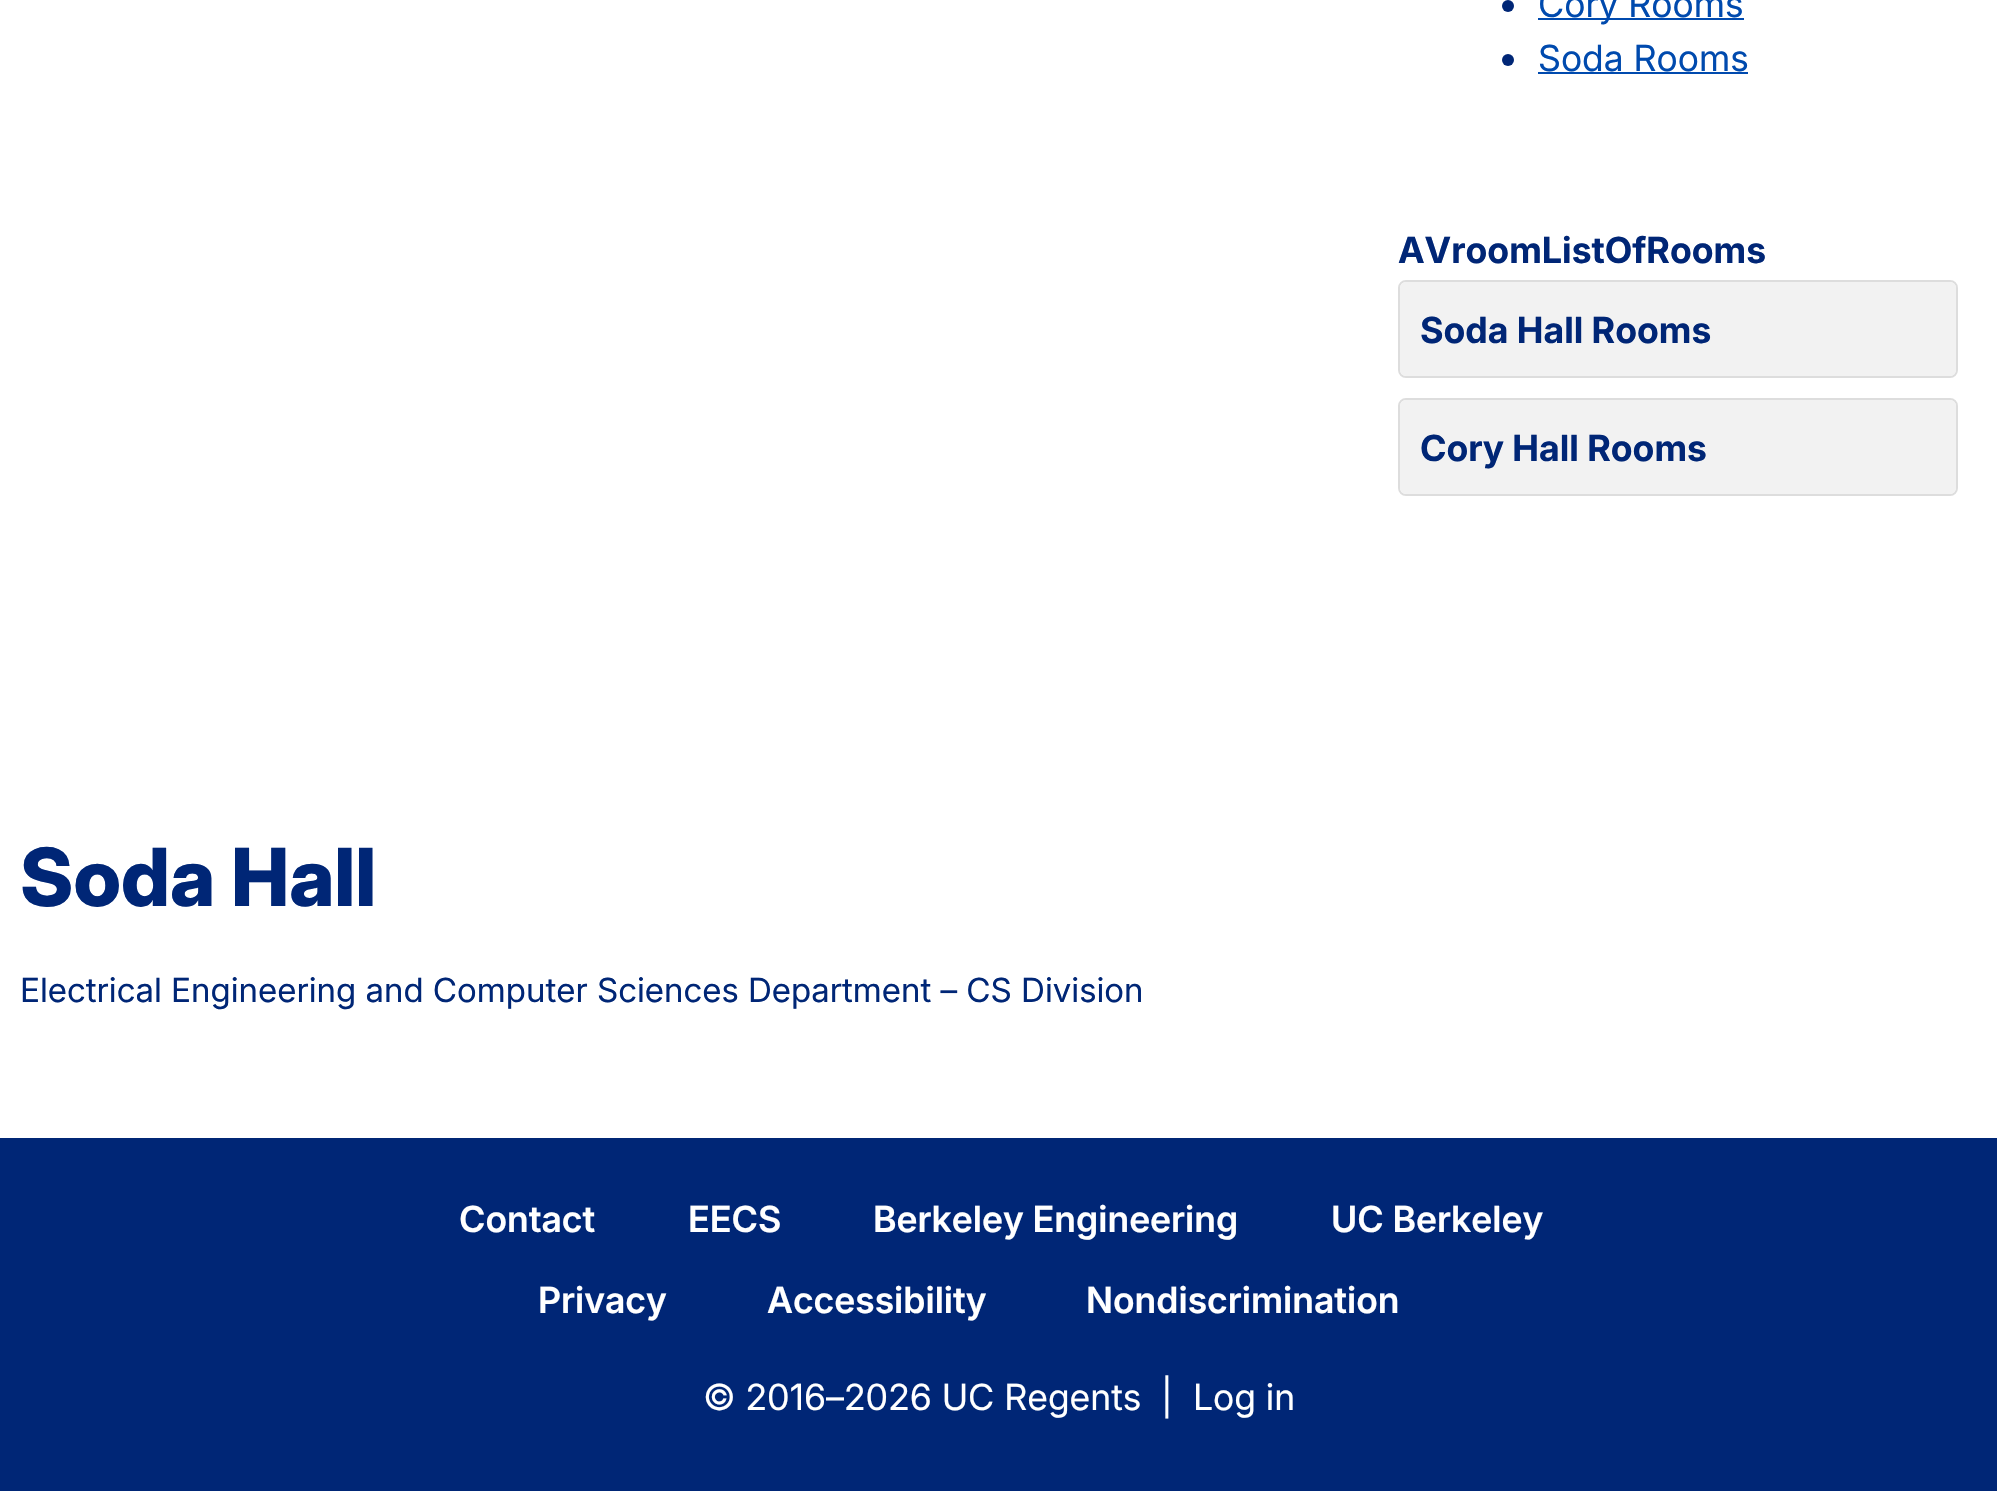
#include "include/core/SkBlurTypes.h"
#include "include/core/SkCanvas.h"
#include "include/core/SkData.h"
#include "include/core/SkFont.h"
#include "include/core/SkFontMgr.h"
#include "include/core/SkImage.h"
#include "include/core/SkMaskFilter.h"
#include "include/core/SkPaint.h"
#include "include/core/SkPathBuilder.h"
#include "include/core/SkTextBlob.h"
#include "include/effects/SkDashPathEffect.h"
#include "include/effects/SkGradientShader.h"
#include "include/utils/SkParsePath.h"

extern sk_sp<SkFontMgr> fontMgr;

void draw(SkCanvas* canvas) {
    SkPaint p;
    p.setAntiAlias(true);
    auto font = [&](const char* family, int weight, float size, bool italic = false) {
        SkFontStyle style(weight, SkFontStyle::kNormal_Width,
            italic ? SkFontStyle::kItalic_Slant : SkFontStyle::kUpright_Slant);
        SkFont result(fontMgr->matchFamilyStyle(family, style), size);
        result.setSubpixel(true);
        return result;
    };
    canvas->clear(0xFFFFFFFF);
    p.setColor(0xFF002676);
    canvas->drawCircle(1508, 6, 6, p);
    p.setColor(0xFF004AAE);
    canvas->drawRect(SkRect::MakeLTRB(1538, 18, 1744, 20), p);
    auto font1 = font("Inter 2", 400, 36);
    canvas->drawString("Cory Rooms", 1538, 17, font1, p);
    p.setColor(0xFF002676);
    canvas->drawCircle(1508, 60, 6, p);
    p.setColor(0xFF004AAE);
    canvas->drawString("Soda Rooms", 1538, 71, font1, p);
    canvas->drawRect(SkRect::MakeLTRB(1538, 72, 1748, 74), p);
    auto font2 = font("Inter", 700, 36);
    p.setColor(0xFF002676);
    canvas->drawString("AVroomListOfRooms", 1398, 263, font2, p);
    p.setStyle(SkPaint::kStroke_Style);
    p.setStrokeWidth(2);
    p.setColor(0xFFDDDDDD);
    canvas->drawRoundRect(SkRect::MakeLTRB(1399, 281, 1957, 377), 7, 7, p);
    p.setStyle(SkPaint::kFill_Style);
    p.setColor(0xFFF2F2F2);
    canvas->drawRoundRect(SkRect::MakeLTRB(1400, 282, 1956, 376), 6, 6, p);
    p.setColor(0xFF002676);
    canvas->drawString("Soda Hall Rooms", 1420, 343, font2, p);
    p.setStyle(SkPaint::kStroke_Style);
    p.setColor(0xFFDDDDDD);
    canvas->drawRoundRect(SkRect::MakeLTRB(1399, 399, 1957, 495), 7, 7, p);
    p.setStyle(SkPaint::kFill_Style);
    p.setColor(0xFFF2F2F2);
    canvas->drawRoundRect(SkRect::MakeLTRB(1400, 400, 1956, 494), 6, 6, p);
    p.setColor(0xFF002676);
    canvas->drawString("Cory Hall Rooms", 1420, 461, font2, p);
    auto font3 = font("Inter", 800, 80);
    canvas->drawString("Soda Hall", 20, 906, font3, p);
    auto font4 = font("Inter", 400, 33.3f);
    canvas->drawString("Electrical Engineering and Computer Sciences Department – CS Division", 20, 1002, font4, p);
    canvas->drawRect(SkRect::MakeLTRB(0, 1138, 1997, 1491), p);
    auto font5 = font("Inter", 600, 36);
    p.setColor(0xFFFFFFFF);
    {
        const struct { const char* s; float x, y; } items[] = {
            {"Contact", 459, 1232},
            {"EECS", 688, 1232},
            {"Berkeley Engineering", 873, 1232},
            {"UC Berkeley", 1331, 1232},
            {"Privacy", 538, 1313},
            {"Accessibility", 767, 1313},
            {"Nondiscrimination", 1086, 1313},
        };
        for (auto [s, x, y] : items) {
            canvas->drawString(s, x, y, font5, p);
        }
    }
    canvas->drawString("© 2016–2026 UC Regents  |", 703, 1410, font1, p);
    canvas->drawString("Log in", 1193, 1410, font1, p);
}
